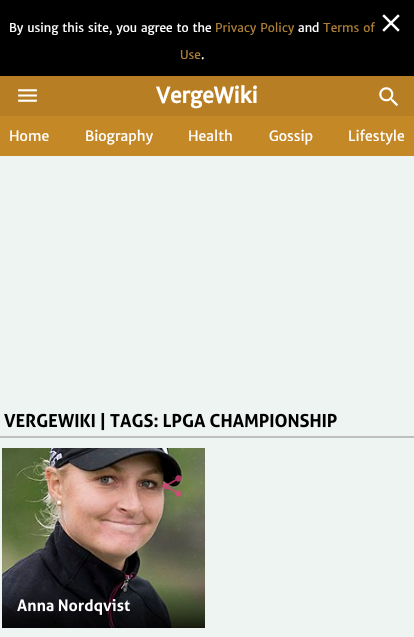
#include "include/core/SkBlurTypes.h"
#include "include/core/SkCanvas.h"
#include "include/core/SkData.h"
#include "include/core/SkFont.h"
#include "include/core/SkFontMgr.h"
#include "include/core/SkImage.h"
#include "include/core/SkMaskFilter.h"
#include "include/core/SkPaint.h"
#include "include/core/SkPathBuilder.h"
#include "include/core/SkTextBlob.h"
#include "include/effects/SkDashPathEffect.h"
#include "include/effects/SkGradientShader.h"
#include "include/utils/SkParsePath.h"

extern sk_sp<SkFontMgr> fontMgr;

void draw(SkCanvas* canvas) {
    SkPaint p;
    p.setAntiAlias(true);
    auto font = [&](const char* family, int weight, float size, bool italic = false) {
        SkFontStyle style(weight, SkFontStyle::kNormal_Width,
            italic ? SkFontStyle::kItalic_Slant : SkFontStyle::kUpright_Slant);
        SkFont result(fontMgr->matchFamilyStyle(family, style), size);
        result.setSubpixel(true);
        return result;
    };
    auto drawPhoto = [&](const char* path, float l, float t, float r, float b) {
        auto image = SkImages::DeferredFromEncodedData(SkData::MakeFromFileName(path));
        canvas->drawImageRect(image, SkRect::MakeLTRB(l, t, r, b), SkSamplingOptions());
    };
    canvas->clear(0xFFEEF4F2);
    p.setColor(0xFF000000);
    canvas->drawRect(SkRect::MakeLTRB(0, 0, 414, 76), p);
    auto font1 = font("Merriweather Sans", 400, 12);
    p.setColor(0xFFFFFFFF);
    canvas->drawString("By using this site, you agree to the", 9, 32, font1, p);
    p.setColor(0xFFAD7F36);
    canvas->drawString("Privacy Policy", 215, 32, font1, p);
    p.setColor(0xFFFFFFFF);
    canvas->drawString("and", 298, 32, font1, p);
    p.setColor(0xFFAD7F36);
    canvas->drawString("Terms of", 323, 32, font1, p);
    canvas->drawString("Use", 180, 59, font1, p);
    p.setColor(0xFFFFFFFF);
    canvas->drawString(".", 201, 59, font1, p);
    drawPhoto("media/1.png", 382, 14, 400, 32);
    p.setColor(0xFFB77E23);
    canvas->drawRect(SkRect::MakeLTRB(0, 76, 414, 116), p);
    drawPhoto("media/2.png", 18, 89, 37, 102);
    auto font2 = font("Merriweather Sans", 700, 21);
    p.setColor(0xFFFFFFFF);
    canvas->drawString("VergeWiki", 156, 103, font2, p);
    drawPhoto("media/3.png", 379, 87, 399, 107);
    p.setColor(0xFFC58826);
    canvas->drawRect(SkRect::MakeLTRB(0, 116, 414, 156), p);
    auto font3 = font("Merriweather Sans", 400, 14);
    p.setColor(0xFFFFFFFF);
    {
        const struct { const char* s; float x, y; } items[] = {
            {"Home", 9, 141},
            {"Biography", 85, 141},
            {"Health", 188, 141},
            {"Gossip", 269, 141},
            {"Lifestyle", 348, 141},
        };
        for (auto [s, x, y] : items) {
            canvas->drawString(s, x, y, font3, p);
        }
    }
    p.setColor(0xFFBFBFBF);
    canvas->drawRect(SkRect::MakeLTRB(0, 436, 414, 438), p);
    drawPhoto("media/4.png", 4, 412, 337, 431);
    drawPhoto("media/5.png", 2, 448, 205, 628);
    drawPhoto("media/6.png", 162, 475, 182, 497);
    drawPhoto("media/7.png", 17, 599, 130, 615);
}
